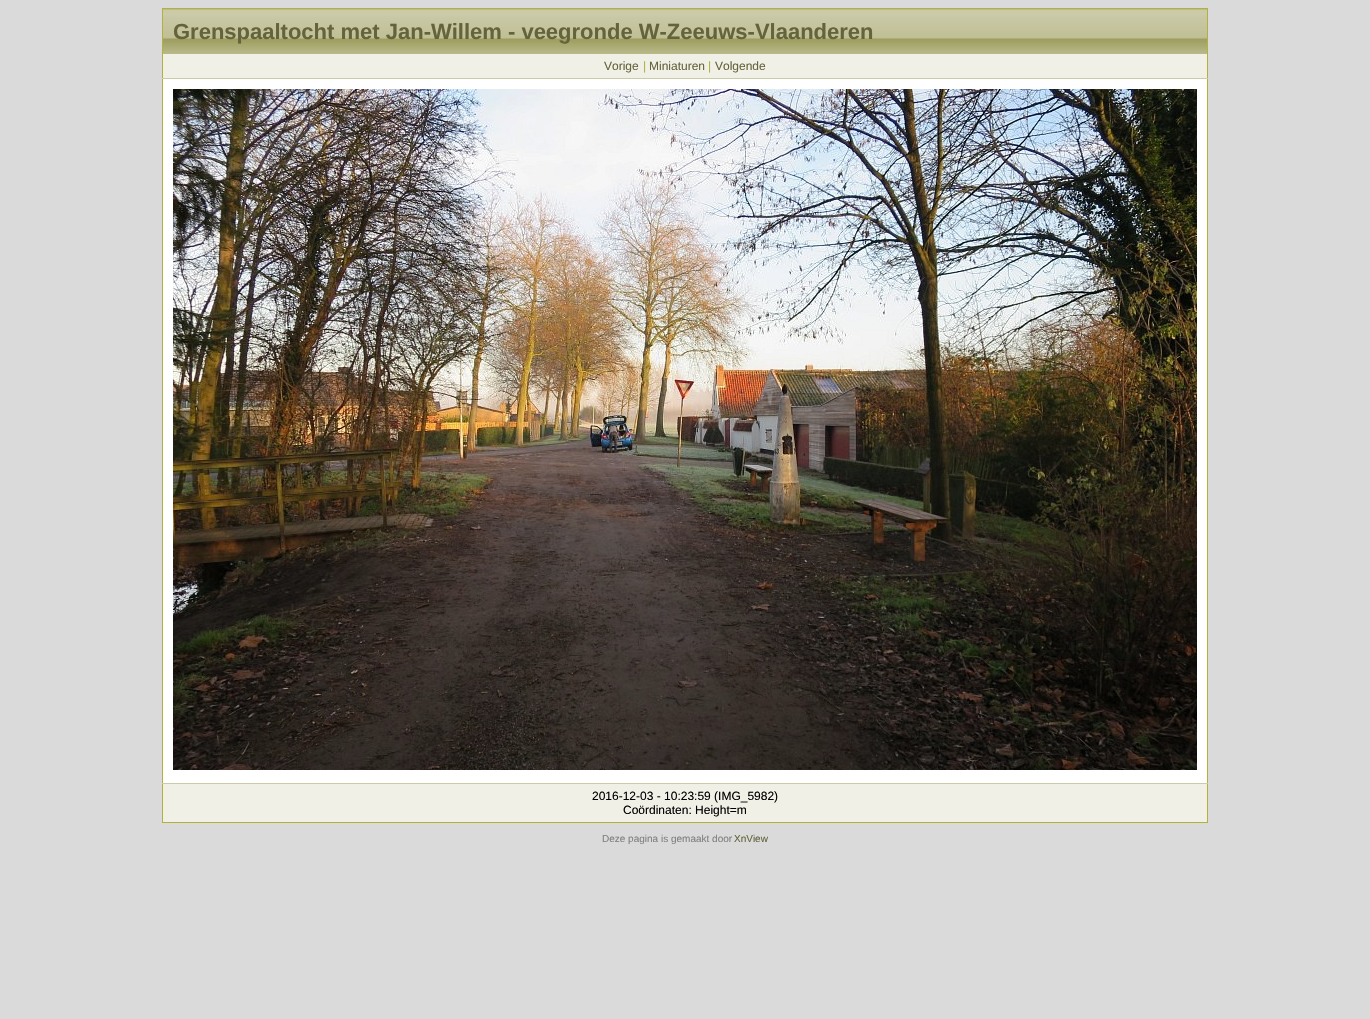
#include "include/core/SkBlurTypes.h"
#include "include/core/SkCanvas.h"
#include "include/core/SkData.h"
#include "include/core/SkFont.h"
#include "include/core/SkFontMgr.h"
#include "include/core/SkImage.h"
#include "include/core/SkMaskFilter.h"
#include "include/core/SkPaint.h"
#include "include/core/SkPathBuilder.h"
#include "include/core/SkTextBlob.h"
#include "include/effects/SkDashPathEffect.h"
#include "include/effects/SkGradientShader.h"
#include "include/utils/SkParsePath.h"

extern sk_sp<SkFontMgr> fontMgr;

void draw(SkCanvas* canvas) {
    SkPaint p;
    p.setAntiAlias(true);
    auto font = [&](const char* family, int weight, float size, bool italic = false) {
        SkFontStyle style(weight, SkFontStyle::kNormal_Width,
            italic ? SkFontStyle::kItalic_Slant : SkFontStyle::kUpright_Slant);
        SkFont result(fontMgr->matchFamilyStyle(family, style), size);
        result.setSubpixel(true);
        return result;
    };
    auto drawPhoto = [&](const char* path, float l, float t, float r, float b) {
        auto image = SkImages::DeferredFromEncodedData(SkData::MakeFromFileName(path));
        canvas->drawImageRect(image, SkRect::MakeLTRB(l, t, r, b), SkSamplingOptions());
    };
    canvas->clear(0xFFDADADA);
    {
        const struct { float l, t, r, b; SkColor color; } items[] = {
            {163, 79, 1207, 783, 0xFFFFFFFF},
            {162, 8, 1208, 9, 0xFFB1B13C},
            {1207, 8, 1208, 823, 0xFFB1B13C},
            {162, 822, 1208, 823, 0xFFB1B13C},
            {162, 8, 163, 823, 0xFFB1B13C},
        };
        for (auto [l, t, r, b, color] : items) {
            p.setColor(color);
            canvas->drawRect(SkRect::MakeLTRB(l, t, r, b), p);
        }
    }
    drawPhoto("media/1.png", 163, 9, 1207, 54);
    auto font1 = font("Liberation Sans", 700, 22);
    p.setColor(0xFF64643C);
    canvas->drawString("Grenspaaltocht met Jan-Willem - veegronde W-Zeeuws-Vlaanderen", 173, 39, font1, p);
    p.setColor(0xFFF1F0E7);
    canvas->drawRect(SkRect::MakeLTRB(163, 54, 1207, 78), p);
    p.setColor(0xFFCBCBA9);
    canvas->drawRect(SkRect::MakeLTRB(162, 78, 1208, 79), p);
    auto font2 = font("Liberation Sans", 400, 12);
    p.setColor(0xFF64643C);
    canvas->drawString("Vorige", 604, 70, font2, p);
    p.setColor(0xFFB1B13C);
    canvas->drawString("|", 643, 70, font2, p);
    p.setColor(0xFF64643C);
    canvas->drawString("Miniaturen", 649, 70, font2, p);
    p.setColor(0xFFB1B13C);
    canvas->drawString("|", 708, 70, font2, p);
    p.setColor(0xFF64643C);
    canvas->drawString("Volgende", 715, 70, font2, p);
    drawPhoto("media/2.png", 173, 89, 1197, 770);
    p.setColor(0xFFF1F0E7);
    canvas->drawRect(SkRect::MakeLTRB(163, 784, 1207, 822), p);
    p.setColor(0xFFCBCBA9);
    canvas->drawRect(SkRect::MakeLTRB(162, 783, 1208, 784), p);
    p.setColor(0xFF000000);
    canvas->drawString("2016-12-03 - 10:23:59 (IMG_5982)", 592, 800, font2, p);
    canvas->drawString("Coördinaten: Height=m", 623, 814, font2, p);
    auto font3 = font("Liberation Sans", 400, 10);
    p.setColor(0xFF808080);
    canvas->drawString("Deze pagina is gemaakt door", 602, 842, font3, p);
    p.setColor(0xFF64643C);
    canvas->drawString("XnView", 734, 842, font3, p);
}
